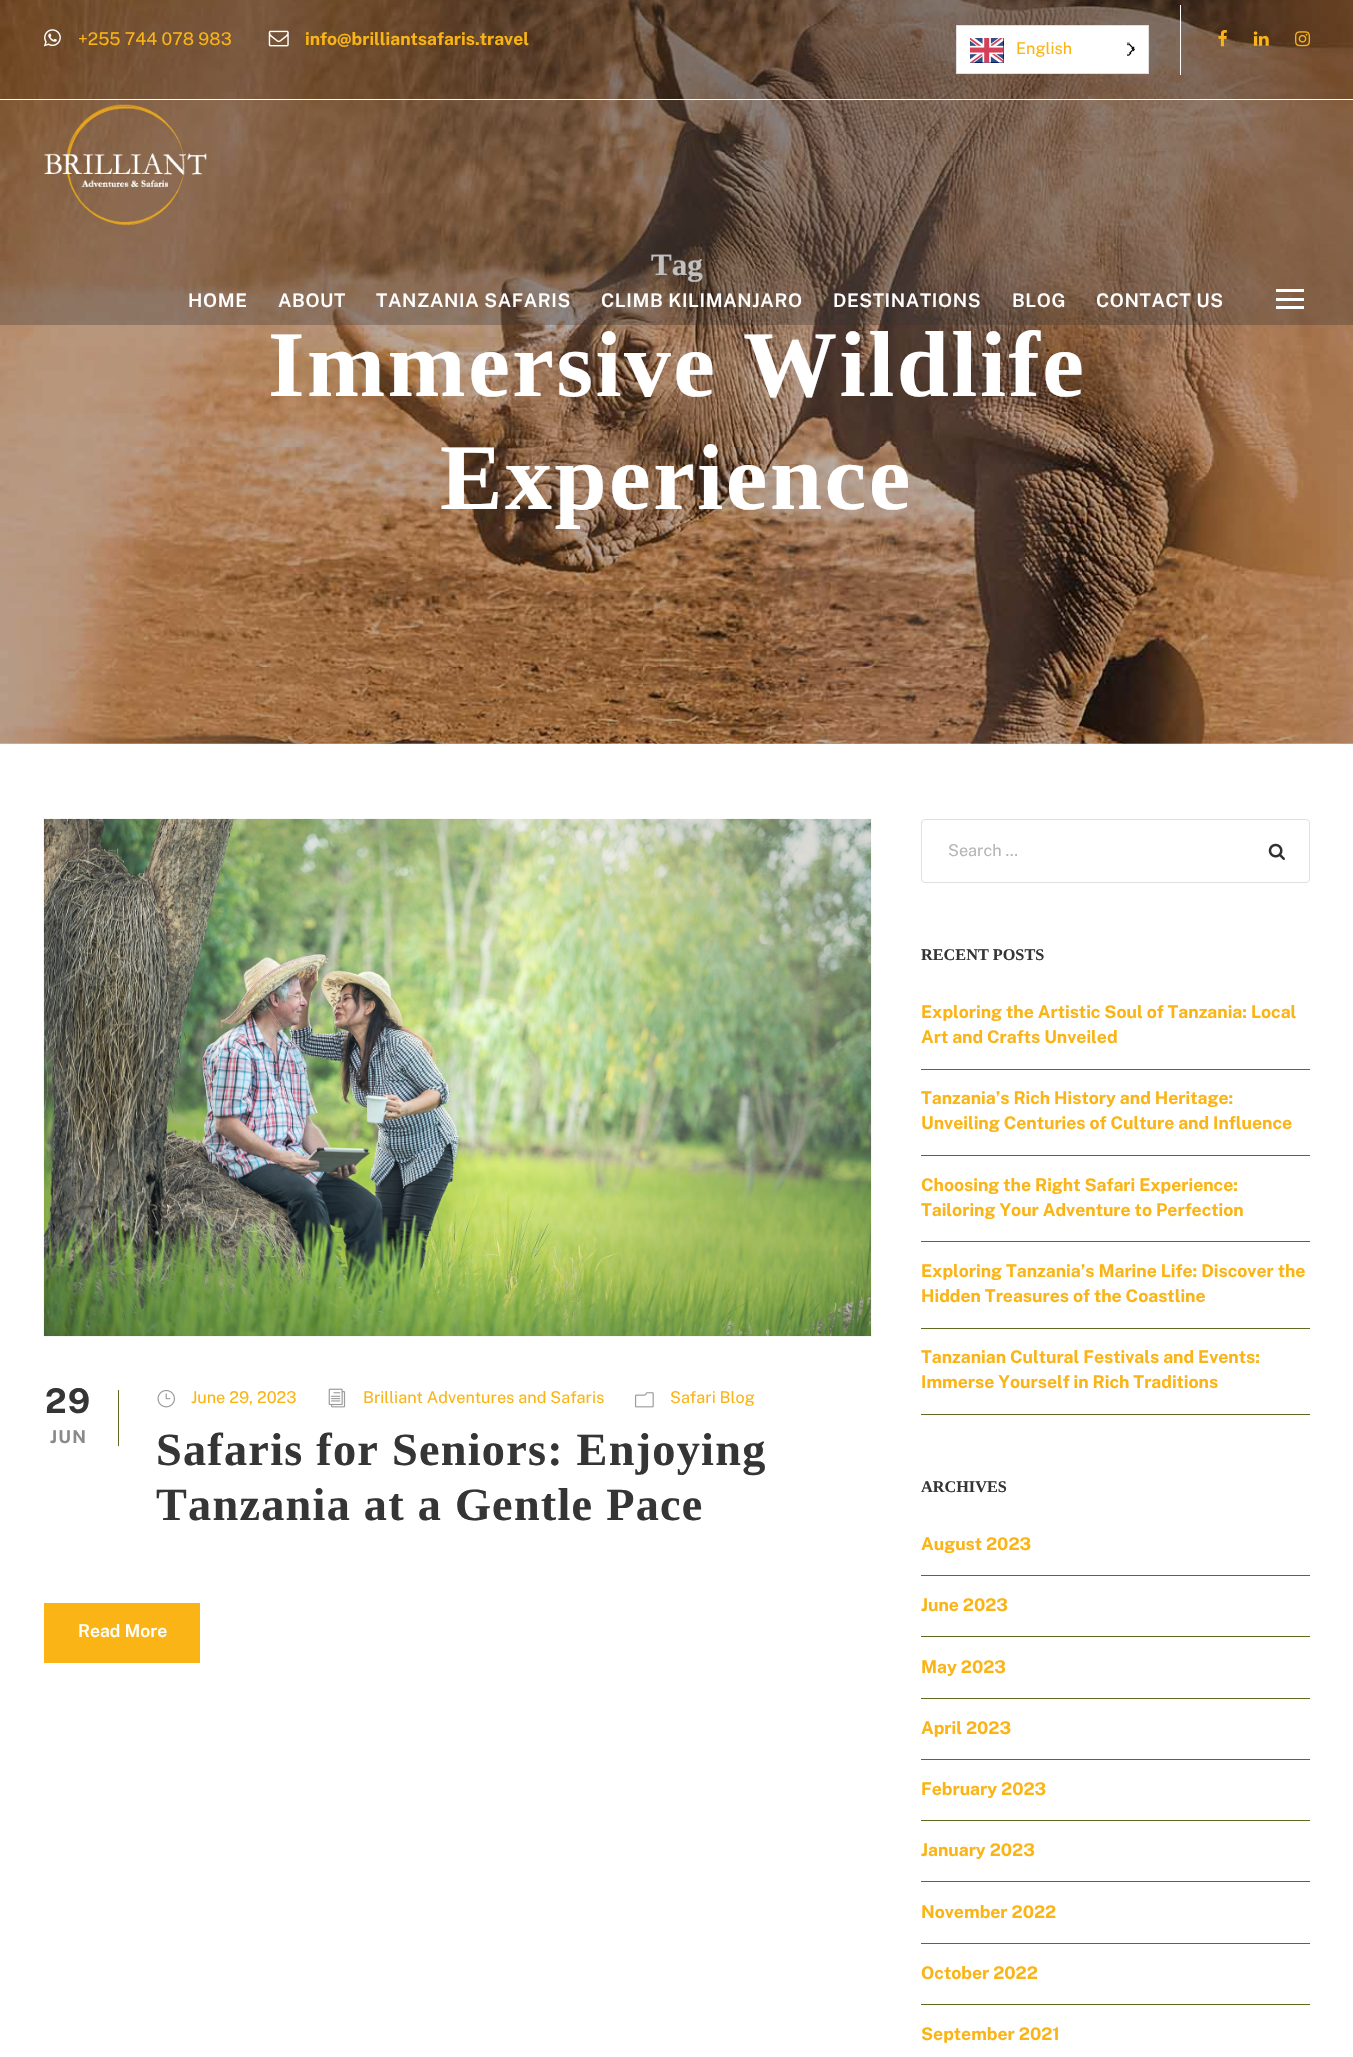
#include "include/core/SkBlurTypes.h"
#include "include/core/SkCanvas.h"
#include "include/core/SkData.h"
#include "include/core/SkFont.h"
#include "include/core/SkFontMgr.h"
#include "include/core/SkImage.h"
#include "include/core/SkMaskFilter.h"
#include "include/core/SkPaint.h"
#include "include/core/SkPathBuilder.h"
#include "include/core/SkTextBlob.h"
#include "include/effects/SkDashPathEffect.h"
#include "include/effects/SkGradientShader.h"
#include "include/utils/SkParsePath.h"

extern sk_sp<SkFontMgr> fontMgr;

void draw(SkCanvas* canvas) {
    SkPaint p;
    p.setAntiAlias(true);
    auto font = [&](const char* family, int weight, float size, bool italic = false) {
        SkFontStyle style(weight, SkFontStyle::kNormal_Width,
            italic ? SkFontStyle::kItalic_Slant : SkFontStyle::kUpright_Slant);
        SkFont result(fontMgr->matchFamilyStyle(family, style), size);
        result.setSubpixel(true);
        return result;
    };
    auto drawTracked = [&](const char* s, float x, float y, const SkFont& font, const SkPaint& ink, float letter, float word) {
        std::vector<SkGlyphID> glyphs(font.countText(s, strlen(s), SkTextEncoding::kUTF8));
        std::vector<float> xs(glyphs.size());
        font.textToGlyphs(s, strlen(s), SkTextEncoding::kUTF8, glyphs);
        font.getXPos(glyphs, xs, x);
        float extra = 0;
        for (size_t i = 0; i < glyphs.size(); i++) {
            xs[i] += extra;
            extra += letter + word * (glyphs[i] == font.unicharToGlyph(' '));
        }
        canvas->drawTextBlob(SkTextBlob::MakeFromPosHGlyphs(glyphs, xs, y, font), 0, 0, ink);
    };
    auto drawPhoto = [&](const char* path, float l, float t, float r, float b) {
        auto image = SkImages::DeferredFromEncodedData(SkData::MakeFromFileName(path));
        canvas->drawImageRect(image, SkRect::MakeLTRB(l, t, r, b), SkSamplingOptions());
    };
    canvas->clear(0xFFFFFFFF);
    drawPhoto("media/9.png", 0, 0, 1353, 744);
    p.setColor(0xFFFFFFFF);
    canvas->drawRect(SkRect::MakeLTRB(0, 99, 1353, 100), p);
    p.setColor(0x4D000000);
    canvas->drawRect(SkRect::MakeLTRB(0, 0, 1353, 99), p);
    drawPhoto("media/1.png", 43, 29, 61, 47);
    auto font1 = font("Public Sans", 400, 17.5f);
    p.setColor(0xFFFAB416);
    canvas->drawString("+255 744 078 983", 78, 45, font1, p);
    drawPhoto("media/2.png", 268, 30, 289, 47);
    auto font2 = font("Public Sans", 700, 17.5f);
    canvas->drawString("info@brilliantsafaris.travel", 305, 45, font2, p);
    p.setColor(0xFFFFFFFF);
    canvas->drawRect(SkRect::MakeLTRB(956.5f, 25.5f, 1148.5f, 73.5f), p);
    p.setStyle(SkPaint::kStroke_Style);
    p.setStrokeWidth(1);
    p.setColor(0xFFE0E0E0);
    canvas->drawRect(SkRect::MakeLTRB(956.5f, 25.5f, 1148.5f, 73.5f), p);
    drawPhoto("media/3.png", 970, 38, 1004, 63);
    auto font3 = font("Public Sans", 400, 16.25f);
    p.setStyle(SkPaint::kFill_Style);
    p.setColor(0xFFFAB416);
    canvas->drawString("English", 1016, 54, font3, p);
    drawPhoto("media/4.png", 1127, 42, 1135, 56);
    p.setColor(0xFFFFFFFF);
    canvas->drawRect(SkRect::MakeLTRB(1180, 5, 1181, 75), p);
    drawPhoto("media/5.png", 1218, 30, 1227, 47);
    drawPhoto("media/6.png", 1253, 31, 1269, 46);
    drawPhoto("media/7.png", 1295, 31, 1310, 47);
    auto font4 = font("Liberation Serif", 700, 31);
    canvas->drawString("Tag", 651, 275, font4, p);
    p.setColor(0x4D303030);
    canvas->drawRect(SkRect::MakeLTRB(0, 100, 1353, 325), p);
    drawPhoto("media/8.png", 43, 104, 207, 226);
    auto font5 = font("Public Sans", 600, 18.75f);
    p.setColor(0xFFFFFFFF);
    {
        const struct { const char* s; float x, y; } items[] = {
            {"HOME", 188, 307},
            {"ABOUT", 278, 307},
            {"TANZANIA SAFARIS", 376, 307},
            {"CLIMB KILIMANJARO", 601, 307},
            {"DESTINATIONS", 833, 307},
            {"BLOG", 1012, 307},
            {"CONTACT US", 1096, 307},
        };
        for (auto [s, x, y] : items) {
            drawTracked(s, x, y, font5, p, 0.6f, 0);
        }
    }
    {
        const struct { float l, t, r, b; SkColor color; } items[] = {
            {1276, 289, 1304, 292, 0xFFFFFFFF},
            {1276, 298, 1304, 301, 0xFFFFFFFF},
            {1276, 306, 1304, 309, 0xFFFFFFFF},
        };
        for (auto [l, t, r, b, color] : items) {
            p.setColor(color);
            canvas->drawRect(SkRect::MakeLTRB(l, t, r, b), p);
        }
    }
    auto font6 = font("Liberation Serif", 700, 93.75f);
    drawTracked("Immersive Wildlife", 268, 396, font6, p, 2.5f, 0);
    drawTracked("Experience", 440, 509, font6, p, 2.5f, 0);
    drawPhoto("media/10.png", 43, 818, 872, 1337);
    p.setColor(0xFF5F6920);
    canvas->drawRect(SkRect::MakeLTRB(118, 1390, 119, 1446), p);
    auto font7 = font("Public Sans", 700, 34);
    p.setColor(0xFF353535);
    drawTracked("29", 45, 1413, font7, p, 1.25f, 0);
    p.setColor(0xFF8A8A8A);
    drawTracked("JUN", 50, 1443, font2, p, 1.25f, 0);
    drawPhoto("media/11.png", 157, 1389, 175, 1408);
    p.setColor(0xFFFAB416);
    canvas->drawString("June 29, 2023", 191, 1403, font3, p);
    drawPhoto("media/12.png", 328, 1388, 346, 1408);
    canvas->drawString("Brilliant Adventures and Safaris", 363, 1403, font3, p);
    drawPhoto("media/13.png", 635, 1392, 654, 1408);
    canvas->drawString("Safari Blog", 670, 1403, font3, p);
    auto font8 = font("Liberation Serif", 700, 46.25f);
    p.setColor(0xFF353535);
    drawTracked("Safaris for Seniors: Enjoying", 156, 1465, font8, p, 1.25f, 0);
    drawTracked("Tanzania at a Gentle Pace", 156, 1520, font8, p, 1.25f, 0);
    p.setColor(0xFFFAB416);
    canvas->drawRect(SkRect::MakeLTRB(44, 1603, 200, 1663), p);
    auto font9 = font("Public Sans", 600, 17.5f);
    p.setColor(0xFFFFFFFF);
    canvas->drawString("Read More", 78, 1637, font9, p);
    p.setStyle(SkPaint::kStroke_Style);
    p.setColor(0xFFE0E0E0);
    canvas->drawRoundRect(SkRect::MakeLTRB(921.5f, 819.5f, 1309.5f, 882.5f), 3.5f, 3.5f, p);
    p.setStyle(SkPaint::kFill_Style);
    p.setColor(0xFFB5B5B5);
    canvas->drawString("Search …", 948, 856, font3, p);
    drawPhoto("media/14.png", 1268, 843, 1285, 860);
    auto font10 = font("Liberation Serif", 700, 16.25f);
    p.setColor(0xFF353535);
    canvas->drawString("RECENT POSTS", 921, 960, font10, p);
    p.setColor(0xFF5F6920);
    canvas->drawRect(SkRect::MakeLTRB(921, 1069, 1310, 1070), p);
    p.setColor(0xFFFAB416);
    canvas->drawString("Exploring the Artistic Soul of Tanzania: Local", 921, 1018, font2, p);
    canvas->drawString("Art and Crafts Unveiled", 921, 1043, font2, p);
    p.setColor(0xFF5F6920);
    canvas->drawRect(SkRect::MakeLTRB(921, 1155, 1310, 1156), p);
    p.setColor(0xFFFAB416);
    canvas->drawString("Tanzania’s Rich History and Heritage:", 921, 1104, font2, p);
    canvas->drawString("Unveiling Centuries of Culture and Influence", 921, 1129, font2, p);
    p.setColor(0xFF5F6920);
    canvas->drawRect(SkRect::MakeLTRB(921, 1241, 1310, 1242), p);
    p.setColor(0xFFFAB416);
    canvas->drawString("Choosing the Right Safari Experience:", 921, 1191, font2, p);
    canvas->drawString("Tailoring Your Adventure to Perfection", 921, 1216, font2, p);
    p.setColor(0xFF5F6920);
    canvas->drawRect(SkRect::MakeLTRB(921, 1328, 1310, 1329), p);
    p.setColor(0xFFFAB416);
    canvas->drawString("Exploring Tanzania’s Marine Life: Discover the", 921, 1277, font2, p);
    canvas->drawString("Hidden Treasures of the Coastline", 921, 1302, font2, p);
    p.setColor(0xFF5F6920);
    canvas->drawRect(SkRect::MakeLTRB(921, 1414, 1310, 1415), p);
    p.setColor(0xFFFAB416);
    canvas->drawString("Tanzanian Cultural Festivals and Events:", 921, 1363, font2, p);
    canvas->drawString("Immerse Yourself in Rich Traditions", 921, 1388, font2, p);
    p.setColor(0xFF353535);
    canvas->drawString("ARCHIVES", 921, 1492, font10, p);
    p.setColor(0xFF5F6920);
    canvas->drawRect(SkRect::MakeLTRB(921, 1575, 1310, 1576), p);
    p.setColor(0xFFFAB416);
    canvas->drawString("August 2023", 921, 1550, font2, p);
    p.setColor(0xFF5F6920);
    canvas->drawRect(SkRect::MakeLTRB(921, 1636, 1310, 1637), p);
    p.setColor(0xFFFAB416);
    canvas->drawString("June 2023", 921, 1611, font2, p);
    p.setColor(0xFF5F6920);
    canvas->drawRect(SkRect::MakeLTRB(921, 1698, 1310, 1699), p);
    p.setColor(0xFFFAB416);
    canvas->drawString("May 2023", 921, 1673, font2, p);
    p.setColor(0xFF5F6920);
    canvas->drawRect(SkRect::MakeLTRB(921, 1759, 1310, 1760), p);
    p.setColor(0xFFFAB416);
    canvas->drawString("April 2023", 921, 1734, font2, p);
    p.setColor(0xFF5F6920);
    canvas->drawRect(SkRect::MakeLTRB(921, 1820, 1310, 1821), p);
    p.setColor(0xFFFAB416);
    canvas->drawString("February 2023", 921, 1795, font2, p);
    p.setColor(0xFF5F6920);
    canvas->drawRect(SkRect::MakeLTRB(921, 1881, 1310, 1882), p);
    p.setColor(0xFFFAB416);
    canvas->drawString("January 2023", 921, 1856, font2, p);
    p.setColor(0xFF5F6920);
    canvas->drawRect(SkRect::MakeLTRB(921, 1943, 1310, 1944), p);
    p.setColor(0xFFFAB416);
    canvas->drawString("November 2022", 921, 1918, font2, p);
    p.setColor(0xFF5F6920);
    canvas->drawRect(SkRect::MakeLTRB(921, 2004, 1310, 2005), p);
    p.setColor(0xFFFAB416);
    canvas->drawString("October 2022", 921, 1979, font2, p);
    canvas->drawString("September 2021", 921, 2040, font2, p);
}
